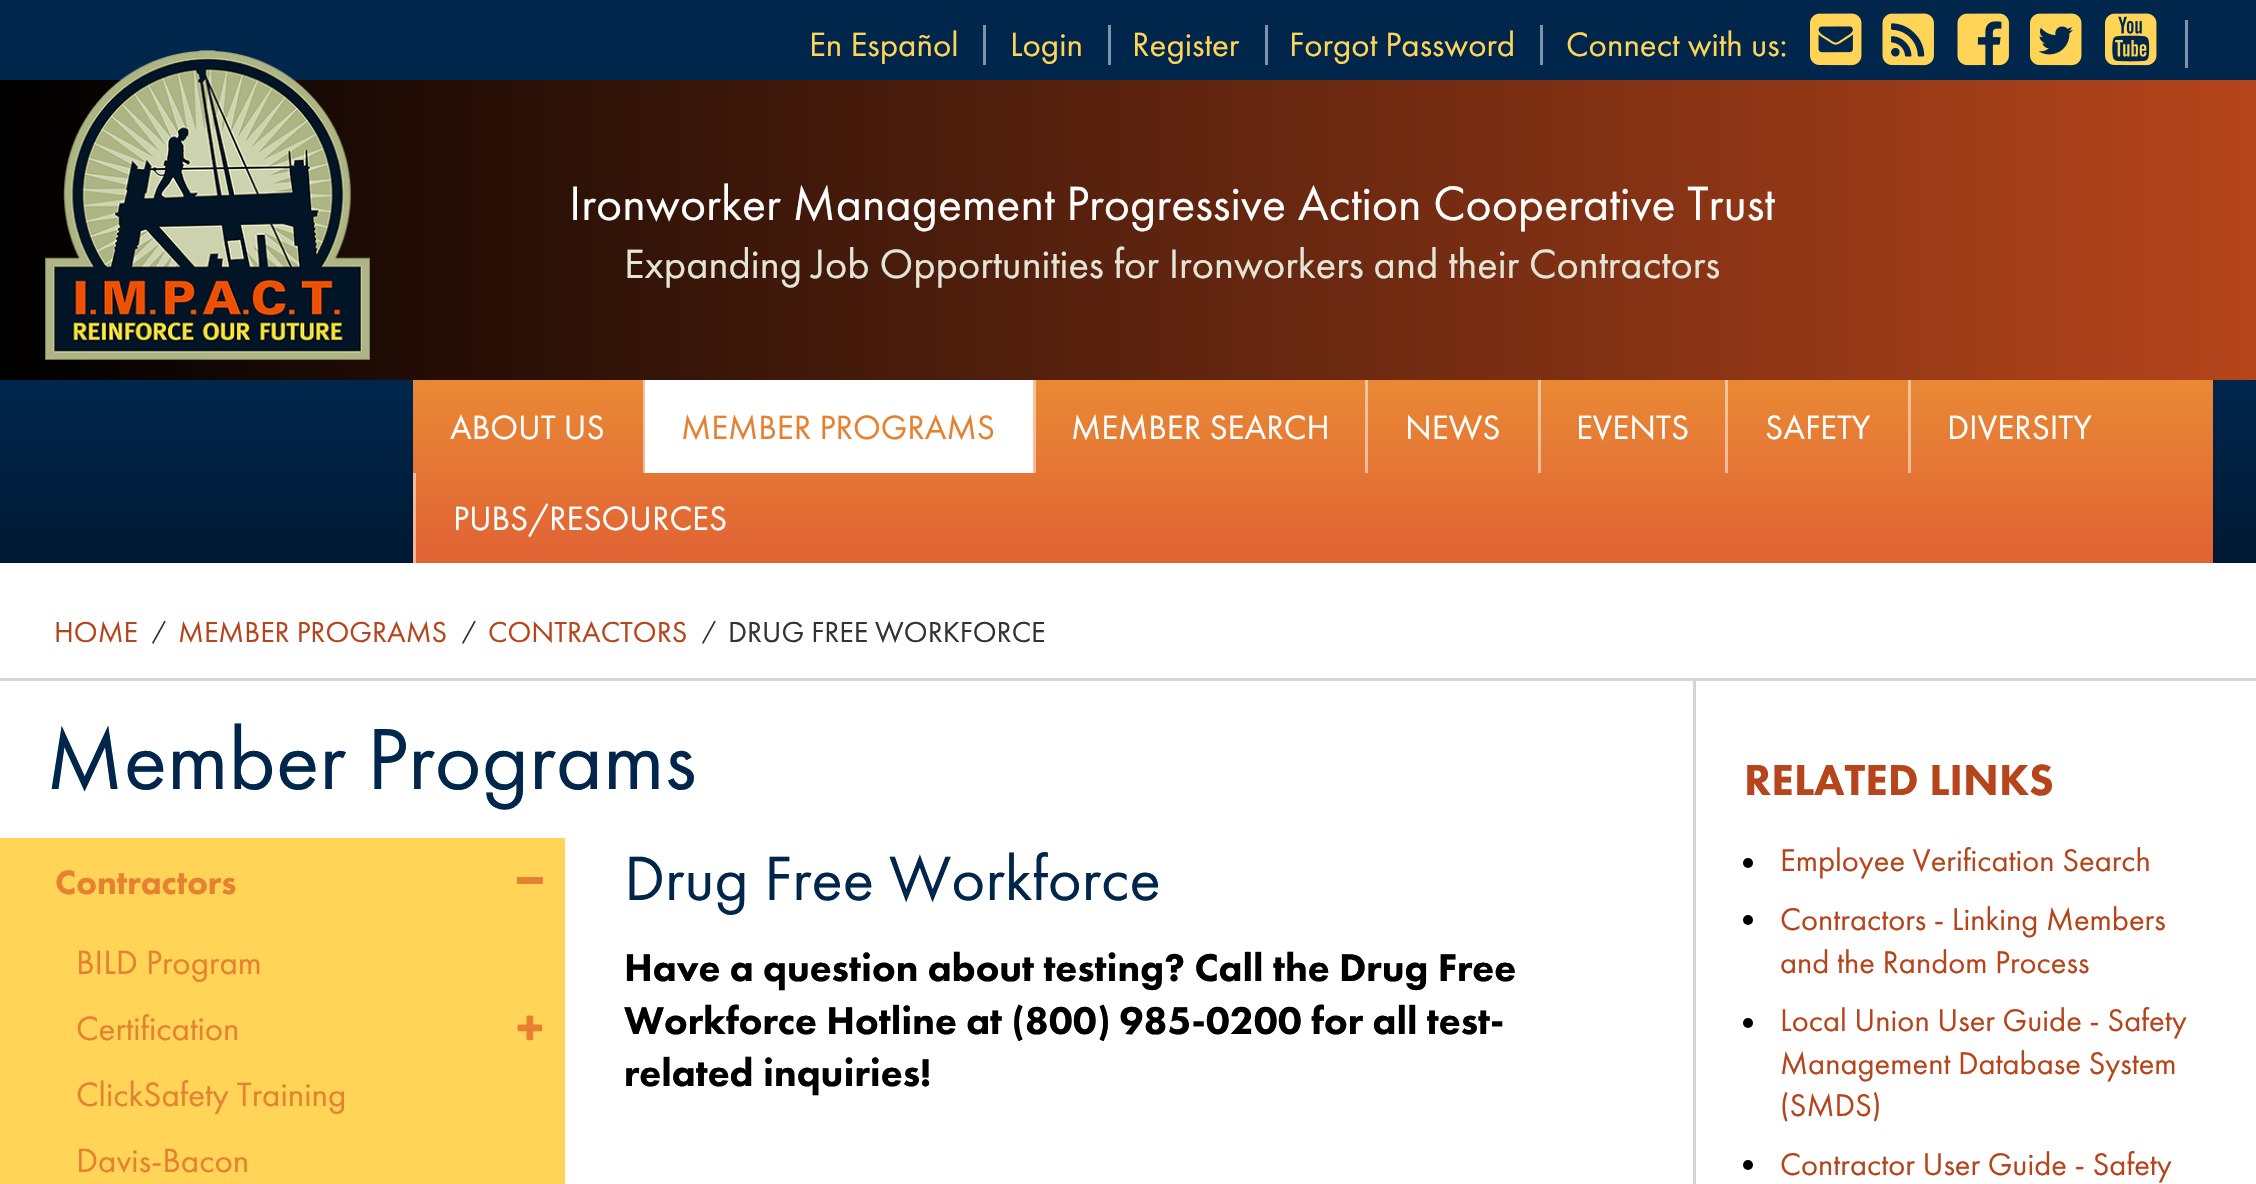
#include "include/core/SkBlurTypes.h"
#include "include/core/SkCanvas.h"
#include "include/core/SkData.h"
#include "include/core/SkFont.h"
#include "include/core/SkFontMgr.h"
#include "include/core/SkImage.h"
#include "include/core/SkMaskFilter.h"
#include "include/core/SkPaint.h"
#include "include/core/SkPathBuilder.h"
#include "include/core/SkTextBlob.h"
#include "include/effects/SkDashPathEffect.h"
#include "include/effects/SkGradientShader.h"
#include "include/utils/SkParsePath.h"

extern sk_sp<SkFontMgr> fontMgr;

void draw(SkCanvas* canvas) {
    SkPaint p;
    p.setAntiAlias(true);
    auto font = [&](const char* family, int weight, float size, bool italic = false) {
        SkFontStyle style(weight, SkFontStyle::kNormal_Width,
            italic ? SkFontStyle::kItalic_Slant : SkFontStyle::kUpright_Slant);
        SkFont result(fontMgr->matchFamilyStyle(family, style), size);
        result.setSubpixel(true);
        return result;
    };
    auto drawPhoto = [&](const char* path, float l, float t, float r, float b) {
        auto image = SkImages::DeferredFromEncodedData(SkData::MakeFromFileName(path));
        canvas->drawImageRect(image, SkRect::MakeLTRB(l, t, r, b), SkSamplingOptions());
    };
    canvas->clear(0xFF00264C);
    p.setColor(0xFF8093A6);
    canvas->drawRect(SkRect::MakeLTRB(983, 25, 986, 65), p);
    auto font1 = font("Futura PT", 400, 35);
    p.setColor(0xFFFFD457);
    canvas->drawString("En Español", 809, 56, font1, p);
    p.setColor(0xFF8093A6);
    canvas->drawRect(SkRect::MakeLTRB(1108, 25, 1111, 65), p);
    p.setColor(0xFFFFD457);
    canvas->drawString("Login", 1010, 56, font1, p);
    p.setColor(0xFF8093A6);
    canvas->drawRect(SkRect::MakeLTRB(1265, 25, 1268, 65), p);
    p.setColor(0xFFFFD457);
    canvas->drawString("Register", 1132, 56, font1, p);
    p.setColor(0xFF8093A6);
    canvas->drawRect(SkRect::MakeLTRB(1540, 25, 1543, 65), p);
    p.setColor(0xFFFFD457);
    canvas->drawString("Forgot Password", 1289, 56, font1, p);
    p.setColor(0xFF8093A6);
    canvas->drawRect(SkRect::MakeLTRB(2185, 20, 2188, 68), p);
    p.setColor(0xFFFFD457);
    canvas->drawString("Connect with us:", 1566, 56, font1, p);
    drawPhoto("media/1.png", 1810, 13, 1862, 66);
    drawPhoto("media/2.png", 1882, 13, 1934, 66);
    drawPhoto("media/3.png", 1957, 13, 2009, 66);
    drawPhoto("media/4.png", 2030, 13, 2082, 66);
    drawPhoto("media/5.png", 2105, 13, 2157, 66);
    {
        const SkColor colors[] = {0xFF000000, 0xFFB6451C};
        const float stops[] = {0, 1};
        const SkPoint ends[] = {{0, 230}, {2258, 230}};
        p.setShader(SkGradientShader::MakeLinear(ends, colors, stops, 2, SkTileMode::kClamp));
        p.setAlpha(255);
    }
    canvas->drawRect(SkRect::MakeLTRB(0, 80, 2256, 380), p);
    drawPhoto("media/6.png", 45, 50, 370, 360);
    auto font2 = font("Futura PT", 400, 50);
    p.setShader(nullptr);
    p.setColor(0xFFFFFFFF);
    canvas->drawString("Ironworker Management Progressive Action Cooperative Trust", 569, 220, font2, p);
    auto font3 = font("Futura PT", 400, 42.5f);
    p.setColor(0xFFE3E5D6);
    canvas->drawString("Expanding Job Opportunities for Ironworkers and their Contractors", 624, 278, font3, p);
    {
        const SkColor colors[] = {0xFF00264C, 0xFF001933};
        const float stops[] = {0, 1};
        const SkPoint ends[] = {{1129, 380}, {1129, 563}};
        p.setShader(SkGradientShader::MakeLinear(ends, colors, stops, 2, SkTileMode::kClamp));
        p.setAlpha(255);
    }
    canvas->drawRect(SkRect::MakeLTRB(0, 398, 2256, 563), p);
    {
        const SkColor colors[] = {0xFFE98935, 0xFFE06234};
        const float stops[] = {0, 1};
        const SkPoint ends[] = {{1313, 380}, {1313, 563}};
        p.setShader(SkGradientShader::MakeLinear(ends, colors, stops, 2, SkTileMode::kClamp));
        p.setAlpha(255);
    }
    canvas->drawRect(SkRect::MakeLTRB(413, 380, 2213, 563), p);
    {
        const SkColor colors[] = {0xFFF4C49A, 0xFFF0B19A};
        const float stops[] = {0, 1};
        const SkPoint ends[] = {{1313, 380}, {1313, 563}};
        p.setShader(SkGradientShader::MakeLinear(ends, colors, stops, 2, SkTileMode::kClamp));
        p.setAlpha(255);
    }
    canvas->drawRect(SkRect::MakeLTRB(1908, 380, 1911, 473), p);
    canvas->drawRect(SkRect::MakeLTRB(1725, 380, 1728, 473), p);
    canvas->drawRect(SkRect::MakeLTRB(1538, 380, 1541, 473), p);
    canvas->drawRect(SkRect::MakeLTRB(1365, 380, 1368, 473), p);
    canvas->drawRect(SkRect::MakeLTRB(1033, 380, 1036, 473), p);
    canvas->drawRect(SkRect::MakeLTRB(643, 380, 645, 473), p);
    p.setShader(nullptr);
    p.setColor(0xFFFFFFFF);
    canvas->drawString("ABOUT US", 450, 439, font1, p);
    canvas->drawRect(SkRect::MakeLTRB(645, 380, 1033, 473), p);
    p.setColor(0xFFE68131);
    canvas->drawString("MEMBER PROGRAMS", 681, 439, font1, p);
    p.setColor(0xFFFFFFFF);
    {
        const struct { const char* s; float x, y; } items[] = {
            {"MEMBER SEARCH", 1071, 439},
            {"NEWS", 1405, 439},
            {"EVENTS", 1576, 439},
            {"SAFETY", 1765, 439},
            {"DIVERSITY", 1947, 439},
        };
        for (auto [s, x, y] : items) {
            canvas->drawString(s, x, y, font1, p);
        }
    }
    p.setColor(0x80FFFFFF);
    canvas->drawRect(SkRect::MakeLTRB(413, 473, 416, 563), p);
    p.setColor(0xFFFFFFFF);
    canvas->drawString("PUBS/RESOURCES", 453, 530, font1, p);
    canvas->drawRect(SkRect::MakeLTRB(0, 563, 2256, 1184), p);
    p.setColor(0xFFD6D6D6);
    canvas->drawRect(SkRect::MakeLTRB(0, 678, 2256, 681), p);
    auto font4 = font("Futura PT", 400, 30);
    p.setColor(0xFFB6451C);
    canvas->drawString("HOME", 54, 642, font4, p);
    auto font5 = font("Futura PT", 400, 24);
    p.setColor(0xFF333333);
    canvas->drawString("/", 152, 639, font5, p);
    p.setColor(0xFFB6451C);
    canvas->drawString("MEMBER PROGRAMS", 178, 642, font4, p);
    p.setColor(0xFF333333);
    canvas->drawString("/", 462, 639, font5, p);
    p.setColor(0xFFB6451C);
    canvas->drawString("CONTRACTORS", 488, 642, font4, p);
    p.setColor(0xFF333333);
    canvas->drawString("/", 702, 639, font5, p);
    canvas->drawString("DRUG FREE WORKFORCE", 728, 642, font4, p);
    auto font6 = font("Futura PT", 400, 90);
    p.setColor(0xFF00264C);
    canvas->drawString("Member Programs", 46, 789, font6, p);
    p.setColor(0xFFFFD457);
    canvas->drawRect(SkRect::MakeLTRB(0, 838, 20, 1184), p);
    canvas->drawRect(SkRect::MakeLTRB(20, 838, 565, 1184), p);
    auto font7 = font("Futura PT", 900, 35);
    p.setColor(0xFFE68131);
    canvas->drawString("Contractors", 55, 894, font7, p);
    canvas->drawRect(SkRect::MakeLTRB(517, 877, 543, 884), p);
    canvas->drawString("BILD Program", 76, 974, font1, p);
    canvas->drawString("Certification", 76, 1040, font1, p);
    drawPhoto("media/7.png", 517, 1015, 543, 1041);
    canvas->drawString("ClickSafety Training", 76, 1106, font1, p);
    canvas->drawString("Davis-Bacon", 76, 1172, font1, p);
    auto font8 = font("Futura PT", 400, 65);
    p.setColor(0xFF00264C);
    canvas->drawString("Drug Free Workforce", 624, 900, font8, p);
    auto font9 = font("Futura PT", 900, 40);
    p.setColor(0xFF000000);
    {
        const struct { const char* s; float x, y; } items[] = {
            {"Have a question about testing? Call the Drug Free", 624, 981},
            {"Workforce Hotline at (800) 985-0200 for all test-", 624, 1034},
            {"related inquiries!", 624, 1086},
        };
        for (auto [s, x, y] : items) {
            canvas->drawString(s, x, y, font9, p);
        }
    }
    p.setColor(0xFFD6D6D6);
    canvas->drawRect(SkRect::MakeLTRB(1693, 680, 1696, 1184), p);
    auto font10 = font("Futura PT", 900, 45);
    p.setColor(0xFFB6451C);
    canvas->drawString("RELATED LINKS", 1744, 795, font10, p);
    p.setColor(0xFF000000);
    canvas->drawCircle(1748, 863, 5, p);
    auto font11 = font("Futura PT", 400, 32.5f);
    p.setColor(0xFFB6451C);
    canvas->drawString("Employee Verification Search", 1780, 871, font11, p);
    p.setColor(0xFF000000);
    canvas->drawCircle(1748, 920, 5, p);
    p.setColor(0xFFB6451C);
    canvas->drawString("Contractors - Linking Members", 1780, 930, font11, p);
    canvas->drawString("and the Random Process", 1780, 973, font11, p);
    p.setColor(0xFF000000);
    canvas->drawCircle(1748, 1023, 5, p);
    p.setColor(0xFFB6451C);
    {
        const struct { const char* s; float x, y; } items[] = {
            {"Local Union User Guide - Safety", 1780, 1031},
            {"Management Database System", 1780, 1074},
            {"(SMDS)", 1780, 1116},
        };
        for (auto [s, x, y] : items) {
            canvas->drawString(s, x, y, font11, p);
        }
    }
    p.setColor(0xFF000000);
    canvas->drawCircle(1748, 1165, 5, p);
    p.setColor(0xFFB6451C);
    canvas->drawString("Contractor User Guide - Safety", 1780, 1175, font11, p);
}
